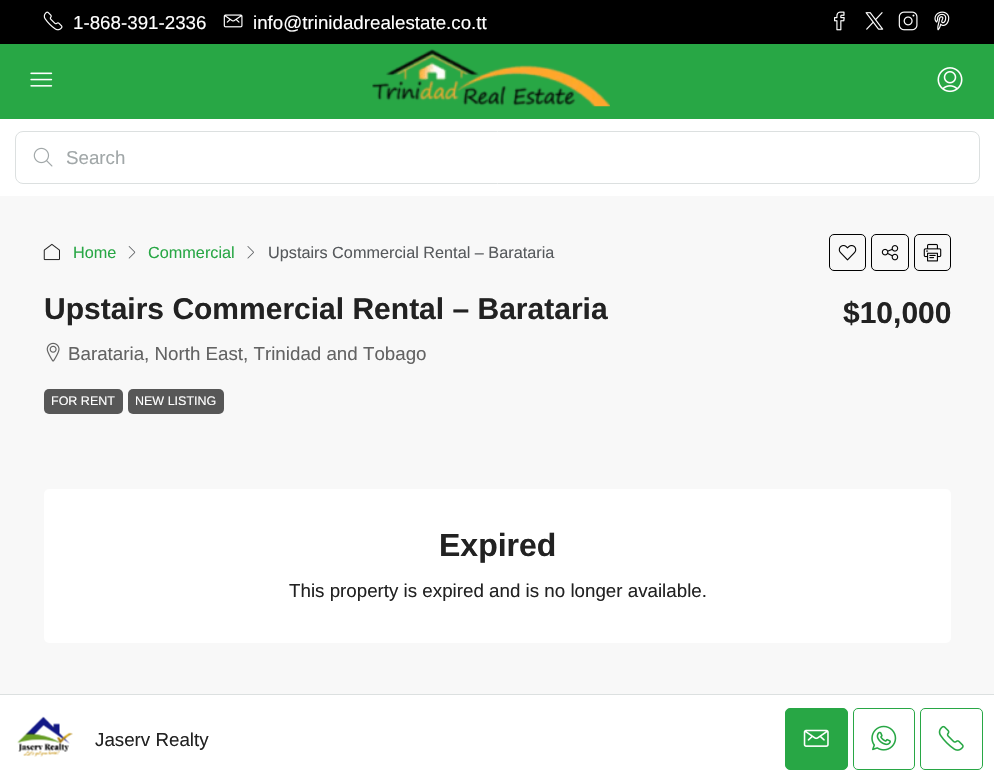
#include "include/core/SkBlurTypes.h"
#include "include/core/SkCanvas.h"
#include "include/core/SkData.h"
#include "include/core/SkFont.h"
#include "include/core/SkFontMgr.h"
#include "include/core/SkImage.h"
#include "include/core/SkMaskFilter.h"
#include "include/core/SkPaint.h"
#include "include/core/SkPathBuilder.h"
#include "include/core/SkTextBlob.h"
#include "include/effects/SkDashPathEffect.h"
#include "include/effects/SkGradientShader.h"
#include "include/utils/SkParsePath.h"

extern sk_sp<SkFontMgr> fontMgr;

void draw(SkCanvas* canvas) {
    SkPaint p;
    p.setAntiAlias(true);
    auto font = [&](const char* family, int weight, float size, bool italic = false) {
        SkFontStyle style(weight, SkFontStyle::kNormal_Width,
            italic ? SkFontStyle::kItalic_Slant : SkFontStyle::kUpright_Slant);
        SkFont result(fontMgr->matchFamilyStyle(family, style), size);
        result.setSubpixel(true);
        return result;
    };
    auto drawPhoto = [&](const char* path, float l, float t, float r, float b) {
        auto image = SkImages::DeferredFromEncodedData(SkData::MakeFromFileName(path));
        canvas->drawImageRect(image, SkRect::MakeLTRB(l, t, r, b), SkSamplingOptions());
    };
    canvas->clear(0xFFF8F8F8);
    p.setColor(0xFF000000);
    canvas->drawRect(SkRect::MakeLTRB(0, 0, 994, 44), p);
    drawPhoto("media/1.png", 43, 11, 63, 31);
    auto font1 = font("Liberation Sans", 400, 18.75f);
    p.setColor(0xFFFFFFFF);
    canvas->drawString("1-868-391-2336", 73, 29, font1, p);
    drawPhoto("media/2.png", 223, 14, 243, 28);
    canvas->drawString("info@trinidadrealestate.co.tt", 253, 29, font1, p);
    drawPhoto("media/3.png", 834, 11, 845, 31);
    drawPhoto("media/4.png", 865, 12, 884, 30);
    drawPhoto("media/5.png", 898, 11, 918, 31);
    drawPhoto("media/6.png", 934, 11, 950, 31);
    p.setColor(0xFF28A745);
    canvas->drawRect(SkRect::MakeLTRB(0, 44, 994, 119), p);
    drawPhoto("media/7.png", 30, 72, 53, 87);
    drawPhoto("media/8.png", 372, 49, 610, 107);
    drawPhoto("media/9.png", 937, 67, 963, 93);
    p.setColor(0xFFFFFFFF);
    canvas->drawRect(SkRect::MakeLTRB(0, 119, 994, 196), p);
    p.setStyle(SkPaint::kStroke_Style);
    p.setStrokeWidth(1);
    p.setColor(0xFFDCE0E0);
    canvas->drawRoundRect(SkRect::MakeLTRB(15.5f, 131.5f, 979.5f, 183.5f), 7.5f, 7.5f, p);
    drawPhoto("media/10.png", 33, 147, 53, 167);
    p.setStyle(SkPaint::kFill_Style);
    p.setColor(0xFFA1A7A8);
    canvas->drawString("Search", 66, 164, font1, p);
    drawPhoto("media/11.png", 43, 243, 60, 261);
    auto font2 = font("Liberation Sans", 400, 16.25f);
    p.setColor(0xFF28A745);
    canvas->drawString("Home", 73, 258, font2, p);
    drawPhoto("media/12.png", 128, 246, 136, 259);
    canvas->drawString("Commercial", 148, 258, font2, p);
    drawPhoto("media/13.png", 247, 246, 254, 259);
    p.setColor(0xFF575A5D);
    canvas->drawString("Upstairs Commercial Rental – Barataria", 268, 258, font2, p);
    p.setStyle(SkPaint::kStroke_Style);
    p.setColor(0xFF000000);
    canvas->drawRoundRect(SkRect::MakeLTRB(829.5f, 234.5f, 865.5f, 270.5f), 4.5f, 4.5f, p);
    drawPhoto("media/14.png", 838, 245, 857, 261);
    canvas->drawRoundRect(SkRect::MakeLTRB(871.5f, 234.5f, 908.5f, 270.5f), 4.5f, 4.5f, p);
    drawPhoto("media/15.png", 881, 245, 899, 261);
    canvas->drawRoundRect(SkRect::MakeLTRB(914.5f, 234.5f, 950.5f, 270.5f), 4.5f, 4.5f, p);
    drawPhoto("media/16.png", 923, 243, 942, 262);
    auto font3 = font("Liberation Sans", 700, 30);
    p.setStyle(SkPaint::kFill_Style);
    p.setColor(0xFF222222);
    canvas->drawString("Upstairs Commercial Rental – Barataria", 44, 319, font3, p);
    drawPhoto("media/17.png", 46, 342, 60, 362);
    p.setColor(0xFF636363);
    canvas->drawString("Barataria, North East, Trinidad and Tobago", 68, 360, font1, p);
    p.setColor(0xFF575757);
    canvas->drawRoundRect(SkRect::MakeLTRB(44, 389, 123, 414), 5, 5, p);
    auto font4 = font("Liberation Sans", 400, 12.5f);
    p.setColor(0xFFFFFFFF);
    canvas->drawString("FOR RENT", 51, 405, font4, p);
    p.setColor(0xFF575757);
    canvas->drawRoundRect(SkRect::MakeLTRB(128, 389, 224, 414), 5, 5, p);
    p.setColor(0xFFFFFFFF);
    canvas->drawString("NEW LISTING", 135, 405, font4, p);
    p.setColor(0xFF222222);
    canvas->drawString("$10,000", 843, 323, font3, p);
    p.setColor(0xFFFFFFFF);
    canvas->drawRoundRect(SkRect::MakeLTRB(44, 489, 951, 643), 5, 5, p);
    auto font5 = font("Liberation Sans", 700, 32);
    p.setColor(0xFF222222);
    canvas->drawString("Expired", 439, 556, font5, p);
    canvas->drawString("This property is expired and is no longer available.", 289, 597, font1, p);
    p.setColor(0xFFFFFFFF);
    canvas->drawRect(SkRect::MakeLTRB(0, 695, 994, 782), p);
    p.setColor(0xFFDCE0E0);
    canvas->drawRect(SkRect::MakeLTRB(0, 694, 994, 695), p);
    drawPhoto("media/18.png", 17, 716, 73, 757);
    p.setColor(0xFF222222);
    canvas->drawString("Jaserv Realty", 95, 746, font1, p);
    p.setColor(0xFF28A745);
    canvas->drawRoundRect(SkRect::MakeLTRB(785.5f, 708.5f, 847.5f, 769.5f), 4.5f, 4.5f, p);
    p.setStyle(SkPaint::kStroke_Style);
    canvas->drawRoundRect(SkRect::MakeLTRB(785.5f, 708.5f, 847.5f, 769.5f), 4.5f, 4.5f, p);
    drawPhoto("media/19.png", 803, 729, 829, 747);
    canvas->drawRoundRect(SkRect::MakeLTRB(853.5f, 708.5f, 914.5f, 769.5f), 4.5f, 4.5f, p);
    drawPhoto("media/20.png", 871, 725, 897, 751);
    canvas->drawRoundRect(SkRect::MakeLTRB(920.5f, 708.5f, 982.5f, 769.5f), 4.5f, 4.5f, p);
    drawPhoto("media/21.png", 938, 725, 964, 751);
}
